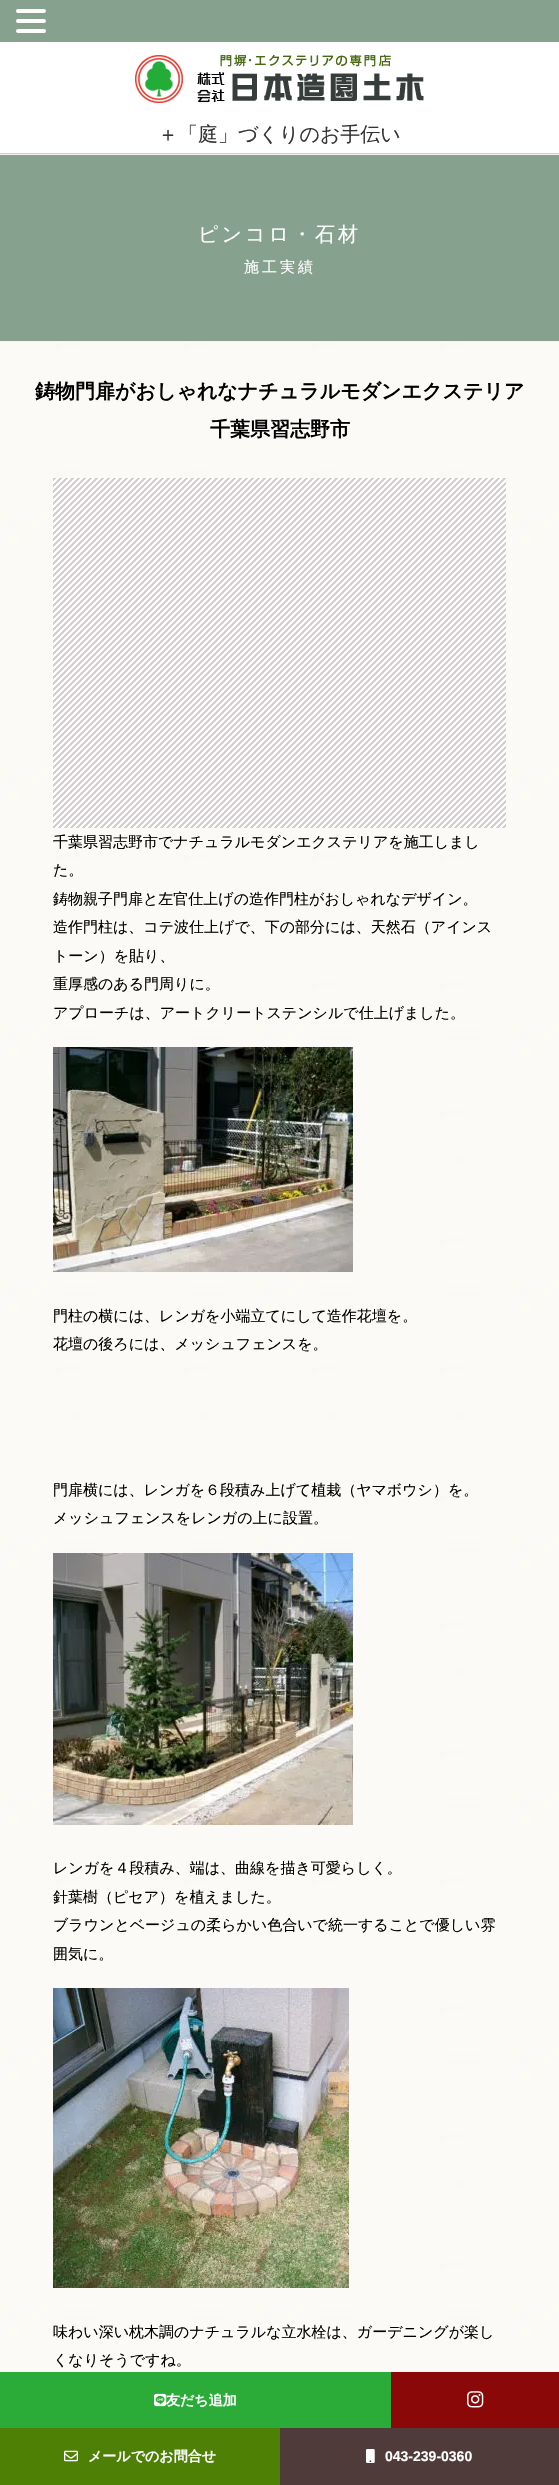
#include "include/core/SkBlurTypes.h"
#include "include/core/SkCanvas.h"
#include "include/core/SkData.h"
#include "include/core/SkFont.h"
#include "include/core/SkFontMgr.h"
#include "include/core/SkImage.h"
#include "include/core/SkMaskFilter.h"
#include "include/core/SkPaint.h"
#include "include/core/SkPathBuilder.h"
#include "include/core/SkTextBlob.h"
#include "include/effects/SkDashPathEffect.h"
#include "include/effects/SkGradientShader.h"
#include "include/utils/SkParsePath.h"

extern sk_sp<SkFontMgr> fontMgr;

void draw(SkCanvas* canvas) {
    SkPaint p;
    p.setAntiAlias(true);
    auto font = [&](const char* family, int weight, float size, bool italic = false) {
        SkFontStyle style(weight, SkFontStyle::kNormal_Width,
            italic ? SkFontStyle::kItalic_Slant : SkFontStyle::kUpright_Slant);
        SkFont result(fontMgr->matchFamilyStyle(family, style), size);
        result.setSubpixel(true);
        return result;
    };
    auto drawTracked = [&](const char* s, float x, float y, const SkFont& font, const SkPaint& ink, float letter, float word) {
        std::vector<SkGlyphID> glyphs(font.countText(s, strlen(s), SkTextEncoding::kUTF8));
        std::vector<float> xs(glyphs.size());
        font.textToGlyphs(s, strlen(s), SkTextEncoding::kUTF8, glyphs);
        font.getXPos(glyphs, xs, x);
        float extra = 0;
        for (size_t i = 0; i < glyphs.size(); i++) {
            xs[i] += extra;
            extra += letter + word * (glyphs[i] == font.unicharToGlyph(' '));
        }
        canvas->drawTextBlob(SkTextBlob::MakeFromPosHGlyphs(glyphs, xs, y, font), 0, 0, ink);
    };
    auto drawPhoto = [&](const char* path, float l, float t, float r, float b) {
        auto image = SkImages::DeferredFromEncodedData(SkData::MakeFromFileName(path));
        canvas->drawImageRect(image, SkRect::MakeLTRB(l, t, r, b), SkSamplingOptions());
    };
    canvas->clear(0xFFFFFFFF);
    drawPhoto("media/1.png", 0, 342, 559, 2372);
    p.setColor(0xFF86A18D);
    canvas->drawRect(SkRect::MakeLTRB(0, 0, 559, 42), p);
    p.setColor(0xFFFFFFFF);
    canvas->drawRoundRect(SkRect::MakeLTRB(16, 9, 46, 13), 2, 2, p);
    canvas->drawRoundRect(SkRect::MakeLTRB(16, 19, 46, 23), 2, 2, p);
    canvas->drawRoundRect(SkRect::MakeLTRB(16, 29, 46, 33), 2, 2, p);
    p.setColor(0xFFCCCCCC);
    canvas->drawRect(SkRect::MakeLTRB(0, 153, 559, 154), p);
    drawPhoto("media/2.png", 135, 54, 424, 103);
    auto font1 = font("WenQuanYi Zen Hei", 500, 20);
    p.setColor(0xFF333333);
    canvas->drawString("＋「庭」づくりのお手伝い", 158, 141, font1, p);
    {
        const struct { float l, t, r, b; SkColor color; } items[] = {
            {0, 155, 559, 341, 0xFF86A18D},
            {0, 154, 559, 155, 0xFFF5F5F5},
            {0, 341, 559, 342, 0xFFF5F5F5},
        };
        for (auto [l, t, r, b, color] : items) {
            p.setColor(color);
            canvas->drawRect(SkRect::MakeLTRB(l, t, r, b), p);
        }
    }
    p.setColor(0xFFFFFFFF);
    drawTracked("ピンコロ・石材", 198, 241, font1, p, 3, 0);
    auto font2 = font("WenQuanYi Zen Hei", 500, 15);
    drawTracked("施工実績", 244, 272, font2, p, 3, 0);
    auto font3 = font("WenQuanYi Zen Hei", 700, 20);
    p.setColor(0xFF000000);
    canvas->drawString("鋳物門扉がおしゃれなナチュラルモダンエクステリア", 35, 398, font3, p);
    canvas->drawString("千葉県習志野市", 210, 436, font3, p);
    drawPhoto("media/3.png", 53, 478, 506, 828);
    {
        const struct { const char* s; float x, y; } items[] = {
            {"千葉県習志野市でナチュラルモダンエクステリアを施工しまし", 53, 847},
            {"た。", 53, 875},
            {"鋳物親子門扉と左官仕上げの造作門柱がおしゃれなデザイン。", 53, 904},
            {"造作門柱は、コテ波仕上げで、下の部分には、天然石（アインス", 53, 932},
            {"トーン）を貼り、", 53, 961},
            {"重厚感のある門周りに。", 53, 989},
            {"アプローチは、アートクリートステンシルで仕上げました。", 53, 1018},
        };
        for (auto [s, x, y] : items) {
            canvas->drawString(s, x, y, font2, p);
        }
    }
    drawPhoto("media/4.png", 53, 1047, 353, 1272);
    {
        const struct { const char* s; float x, y; } items[] = {
            {"門柱の横には、レンガを小端立てにして造作花壇を。", 53, 1321},
            {"花壇の後ろには、メッシュフェンスを。", 53, 1349},
            {"門扉横には、レンガを６段積み上げて植栽（ヤマボウシ）を。", 53, 1495},
            {"メッシュフェンスをレンガの上に設置。", 53, 1523},
        };
        for (auto [s, x, y] : items) {
            canvas->drawString(s, x, y, font2, p);
        }
    }
    drawPhoto("media/5.png", 53, 1553, 353, 1825);
    {
        const struct { const char* s; float x, y; } items[] = {
            {"レンガを４段積み、端は、曲線を描き可愛らしく。", 53, 1873},
            {"針葉樹（ピセア）を植えました。", 53, 1902},
            {"ブラウンとベージュの柔らかい色合いで統一することで優しい雰", 53, 1930},
            {"囲気に。", 53, 1959},
        };
        for (auto [s, x, y] : items) {
            canvas->drawString(s, x, y, font2, p);
        }
    }
    drawPhoto("media/6.png", 53, 1988, 349, 2288);
    canvas->drawString("味わい深い枕木調のナチュラルな立水栓は、ガーデニングが楽し", 53, 2337, font2, p);
    canvas->drawString("くなりそうですね。", 53, 2365, font2, p);
    p.setColor(0xFF2BAC38);
    canvas->drawRect(SkRect::MakeLTRB(0, 2372, 391, 2428), p);
    auto font4 = font("WenQuanYi Zen Hei", 700, 14);
    p.setColor(0xFFFFFFFF);
    canvas->drawString("友だち追加", 166, 2405, font4, p);
    drawPhoto("media/7.png", 154, 2393, 167, 2407);
    p.setColor(0xFF8A0808);
    canvas->drawRect(SkRect::MakeLTRB(391, 2372, 559, 2428), p);
    drawPhoto("media/8.png", 467, 2391, 484, 2408);
    p.setColor(0xFF4E8005);
    canvas->drawRect(SkRect::MakeLTRB(0, 2428, 280, 2485), p);
    drawPhoto("media/9.png", 64, 2450, 78, 2462);
    p.setColor(0xFFFFFFFF);
    canvas->drawString("メールでのお問合せ", 88, 2461, font4, p);
    p.setColor(0xFF4F3B3A);
    canvas->drawRect(SkRect::MakeLTRB(280, 2428, 559, 2485), p);
    drawPhoto("media/10.png", 366, 2449, 375, 2463);
    auto font5 = font("Liberation Sans", 700, 14);
    p.setColor(0xFFFFFFFF);
    canvas->drawString("043-239-0360", 385, 2461, font5, p);
}
